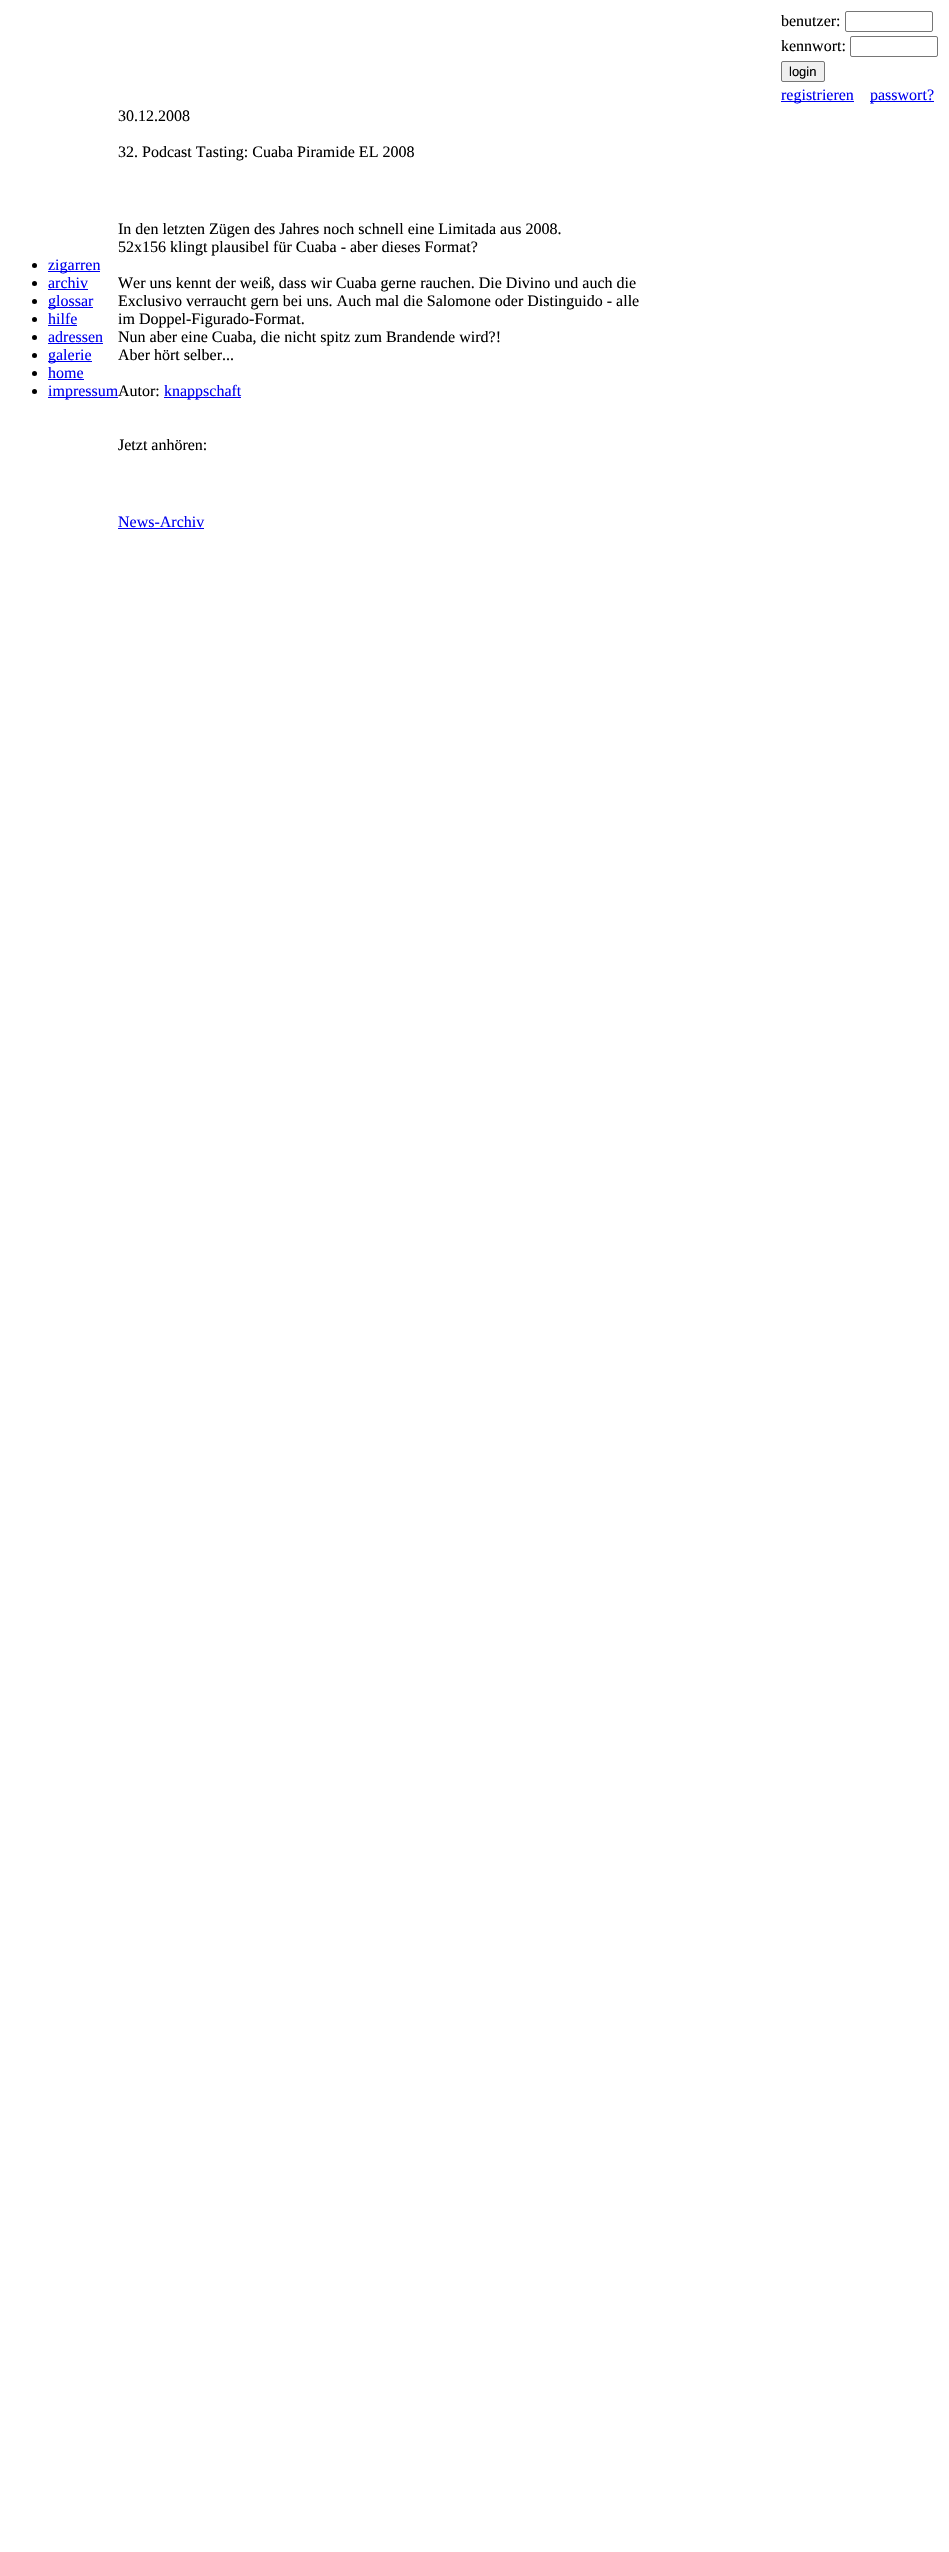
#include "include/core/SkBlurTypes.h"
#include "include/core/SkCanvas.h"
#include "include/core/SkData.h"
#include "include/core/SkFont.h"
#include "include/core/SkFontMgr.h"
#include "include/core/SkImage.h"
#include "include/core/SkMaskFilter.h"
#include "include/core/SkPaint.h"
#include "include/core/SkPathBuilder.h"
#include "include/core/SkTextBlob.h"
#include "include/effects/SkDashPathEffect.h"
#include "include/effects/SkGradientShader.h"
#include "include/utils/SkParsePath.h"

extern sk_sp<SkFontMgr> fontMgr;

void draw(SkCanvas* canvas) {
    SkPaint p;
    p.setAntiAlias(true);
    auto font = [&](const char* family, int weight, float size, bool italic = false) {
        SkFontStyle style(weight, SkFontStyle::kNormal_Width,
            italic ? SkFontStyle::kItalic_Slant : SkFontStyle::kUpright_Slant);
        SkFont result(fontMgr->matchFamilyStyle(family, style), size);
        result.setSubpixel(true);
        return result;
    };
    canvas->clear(0xFFFFFFFF);
    auto font1 = font("Liberation Serif", 400, 16);
    p.setColor(0xFF000000);
    canvas->drawString("benutzer:", 781, 26, font1, p);
    p.setStyle(SkPaint::kStroke_Style);
    p.setStrokeWidth(1);
    p.setColor(0xFF767676);
    canvas->drawRoundRect(SkRect::MakeLTRB(845.5f, 11.5f, 932.5f, 31.5f), 1.5f, 1.5f, p);
    p.setStyle(SkPaint::kFill_Style);
    p.setColor(0xFF000000);
    canvas->drawString("kennwort:", 781, 51, font1, p);
    p.setStyle(SkPaint::kStroke_Style);
    p.setColor(0xFF767676);
    canvas->drawRoundRect(SkRect::MakeLTRB(850.5f, 36.5f, 937.5f, 56.5f), 1.5f, 1.5f, p);
    p.setStyle(SkPaint::kFill_Style);
    p.setColor(0xFFEFEFEF);
    canvas->drawRoundRect(SkRect::MakeLTRB(781.5f, 61.5f, 824.5f, 81.5f), 1.5f, 1.5f, p);
    p.setStyle(SkPaint::kStroke_Style);
    p.setColor(0xFF767676);
    canvas->drawRoundRect(SkRect::MakeLTRB(781.5f, 61.5f, 824.5f, 81.5f), 1.5f, 1.5f, p);
    auto font2 = font("Liberation Sans", 400, 13);
    p.setStyle(SkPaint::kFill_Style);
    p.setColor(0xFF000000);
    canvas->drawString("login", 789, 76, font2, p);
    p.setColor(0xFF0000EE);
    canvas->drawRect(SkRect::MakeLTRB(781, 101, 854, 102), p);
    canvas->drawString("registrieren", 781, 100, font1, p);
    canvas->drawRect(SkRect::MakeLTRB(870, 101, 934, 102), p);
    canvas->drawString("passwort?", 870, 100, font1, p);
    p.setColor(0xFF000000);
    canvas->drawCircle(34.5f, 265.5f, 2.5f, p);
    p.setColor(0xFF0000EE);
    canvas->drawRect(SkRect::MakeLTRB(48, 271, 100, 272), p);
    canvas->drawString("zigarren", 48, 270, font1, p);
    p.setColor(0xFF000000);
    canvas->drawCircle(34.5f, 283.5f, 2.5f, p);
    p.setColor(0xFF0000EE);
    canvas->drawString("archiv", 48, 288, font1, p);
    canvas->drawRect(SkRect::MakeLTRB(48, 289, 88, 290), p);
    p.setColor(0xFF000000);
    canvas->drawCircle(34.5f, 301.5f, 2.5f, p);
    p.setColor(0xFF0000EE);
    canvas->drawRect(SkRect::MakeLTRB(48, 307, 93, 308), p);
    canvas->drawString("glossar", 48, 306, font1, p);
    p.setColor(0xFF000000);
    canvas->drawCircle(34.5f, 319.5f, 2.5f, p);
    p.setColor(0xFF0000EE);
    canvas->drawString("hilfe", 48, 324, font1, p);
    canvas->drawRect(SkRect::MakeLTRB(48, 325, 77, 326), p);
    p.setColor(0xFF000000);
    canvas->drawCircle(34.5f, 337.5f, 2.5f, p);
    p.setColor(0xFF0000EE);
    canvas->drawString("adressen", 48, 342, font1, p);
    canvas->drawRect(SkRect::MakeLTRB(48, 343, 103, 344), p);
    p.setColor(0xFF000000);
    canvas->drawCircle(34.5f, 355.5f, 2.5f, p);
    p.setColor(0xFF0000EE);
    canvas->drawRect(SkRect::MakeLTRB(48, 361, 92, 362), p);
    canvas->drawString("galerie", 48, 360, font1, p);
    p.setColor(0xFF000000);
    canvas->drawCircle(34.5f, 373.5f, 2.5f, p);
    p.setColor(0xFF0000EE);
    canvas->drawString("home", 48, 378, font1, p);
    canvas->drawRect(SkRect::MakeLTRB(48, 379, 84, 380), p);
    p.setColor(0xFF000000);
    canvas->drawCircle(34.5f, 391.5f, 2.5f, p);
    p.setColor(0xFF0000EE);
    canvas->drawRect(SkRect::MakeLTRB(48, 397, 118, 398), p);
    canvas->drawString("impressum", 48, 396, font1, p);
    p.setColor(0xFF000000);
    {
        const struct { const char* s; float x, y; } items[] = {
            {"30.12.2008", 118, 121},
            {"32. Podcast Tasting: Cuaba Piramide EL 2008", 118, 157},
            {"In den letzten Zügen des Jahres noch schnell eine Limitada aus 2008.", 118, 234},
            {"52x156 klingt plausibel für Cuaba - aber dieses Format?", 118, 252},
            {"Wer uns kennt der weiß, dass wir Cuaba gerne rauchen. Die Divino und auch die", 118, 288},
            {"Exclusivo verraucht gern bei uns. Auch mal die Salomone oder Distinguido - alle", 118, 306},
            {"im Doppel-Figurado-Format.", 118, 324},
            {"Nun aber eine Cuaba, die nicht spitz zum Brandende wird?!", 118, 342},
            {"Aber hört selber...", 118, 360},
            {"Autor:", 118, 396},
        };
        for (auto [s, x, y] : items) {
            canvas->drawString(s, x, y, font1, p);
        }
    }
    p.setColor(0xFF0000EE);
    canvas->drawRect(SkRect::MakeLTRB(164, 397, 241, 398), p);
    canvas->drawString("knappschaft", 164, 396, font1, p);
    p.setColor(0xFF000000);
    canvas->drawString("Jetzt anhören:", 118, 450, font1, p);
    p.setColor(0xFF0000EE);
    canvas->drawString("News-Archiv", 118, 527, font1, p);
    canvas->drawRect(SkRect::MakeLTRB(118, 528, 204, 529), p);
}
